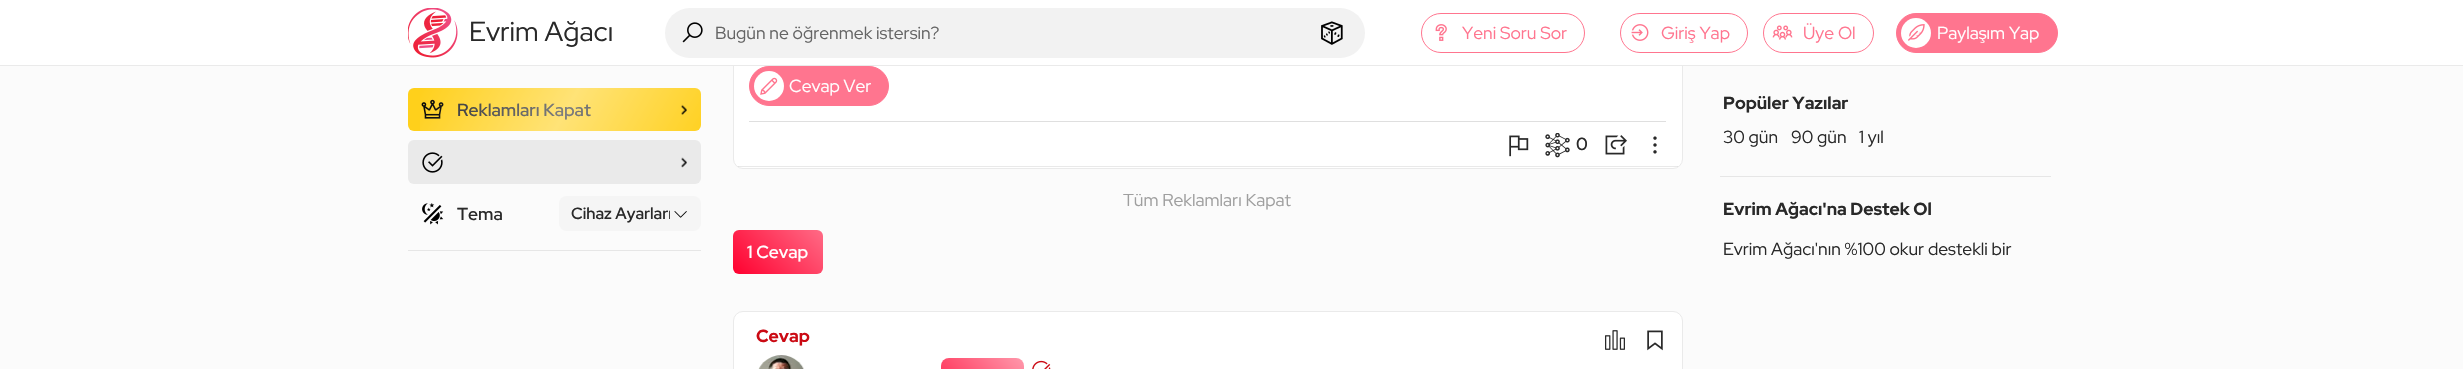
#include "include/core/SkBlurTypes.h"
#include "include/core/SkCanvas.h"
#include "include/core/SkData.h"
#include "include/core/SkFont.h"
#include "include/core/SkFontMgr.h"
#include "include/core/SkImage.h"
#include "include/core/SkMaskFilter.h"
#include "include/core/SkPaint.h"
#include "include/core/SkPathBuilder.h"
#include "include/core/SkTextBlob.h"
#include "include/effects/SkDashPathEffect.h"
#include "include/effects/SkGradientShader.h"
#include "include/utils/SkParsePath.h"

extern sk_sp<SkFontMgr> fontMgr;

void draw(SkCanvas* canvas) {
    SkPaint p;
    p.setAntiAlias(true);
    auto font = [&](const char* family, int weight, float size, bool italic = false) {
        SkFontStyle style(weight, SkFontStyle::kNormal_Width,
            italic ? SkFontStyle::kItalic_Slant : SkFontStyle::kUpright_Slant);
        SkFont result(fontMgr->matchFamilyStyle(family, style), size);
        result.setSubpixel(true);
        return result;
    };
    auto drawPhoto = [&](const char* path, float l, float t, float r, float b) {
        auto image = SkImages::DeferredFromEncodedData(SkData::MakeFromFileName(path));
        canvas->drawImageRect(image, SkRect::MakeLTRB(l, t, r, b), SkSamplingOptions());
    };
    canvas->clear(0xFFFBFBFB);
    p.setColor(0xFFFFFFFF);
    canvas->drawRoundRect(SkRect::MakeLTRB(733.5f, -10.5f, 1682.5f, 168.5f), 9.5f, 9.5f, p);
    p.setStyle(SkPaint::kStroke_Style);
    p.setStrokeWidth(1);
    p.setColor(0xFFEAEAEA);
    canvas->drawRoundRect(SkRect::MakeLTRB(733.5f, -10.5f, 1682.5f, 168.5f), 9.5f, 9.5f, p);
    p.setStyle(SkPaint::kFill_Style);
    p.setColor(0xFFFFFFFF);
    canvas->drawRect(SkRect::MakeLTRB(0, 0, 2463, 65), p);
    p.setColor(0xFFEAEAEA);
    canvas->drawRect(SkRect::MakeLTRB(0, 65, 2463, 66), p);
    drawPhoto("media/1.png", 408, 8, 458, 58);
    auto font1 = font("Red Hat Display", 400, 27.5f);
    p.setColor(0xFF292929);
    canvas->drawString("Evrim Ağacı", 469, 41, font1, p);
    p.setColor(0xFFF2F2F2);
    canvas->drawRoundRect(SkRect::MakeLTRB(665, 8, 1365, 58), 25, 25, p);
    drawPhoto("media/2.png", 682, 22, 703, 43);
    auto font2 = font("Red Hat Display", 400, 17.5f);
    p.setColor(0xFF656565);
    canvas->drawString("Bugün ne öğrenmek istersin?", 715, 39, font2, p);
    drawPhoto("media/3.png", 1321, 21, 1343, 45);
    p.setStyle(SkPaint::kStroke_Style);
    p.setColor(0xFFFF758F);
    canvas->drawRoundRect(SkRect::MakeLTRB(1421.5f, 13.5f, 1584.5f, 52.5f), 19.5f, 19.5f, p);
    drawPhoto("media/4.png", 1435, 24, 1447, 41);
    p.setStyle(SkPaint::kFill_Style);
    canvas->drawString("Yeni Soru Sor", 1462, 39, font2, p);
    p.setStyle(SkPaint::kStroke_Style);
    canvas->drawRoundRect(SkRect::MakeLTRB(1620.5f, 13.5f, 1747.5f, 52.5f), 19.5f, 19.5f, p);
    drawPhoto("media/5.png", 1631, 24, 1649, 41);
    p.setStyle(SkPaint::kFill_Style);
    canvas->drawString("Giriş Yap", 1661, 39, font2, p);
    p.setStyle(SkPaint::kStroke_Style);
    canvas->drawRoundRect(SkRect::MakeLTRB(1763.5f, 13.5f, 1873.5f, 52.5f), 19.5f, 19.5f, p);
    drawPhoto("media/6.png", 1772, 25, 1793, 40);
    p.setStyle(SkPaint::kFill_Style);
    canvas->drawString("Üye Ol", 1803, 39, font2, p);
    canvas->drawRoundRect(SkRect::MakeLTRB(1896.5f, 13.5f, 2057.5f, 52.5f), 19.5f, 19.5f, p);
    p.setStyle(SkPaint::kStroke_Style);
    canvas->drawRoundRect(SkRect::MakeLTRB(1896.5f, 13.5f, 2057.5f, 52.5f), 19.5f, 19.5f, p);
    p.setStyle(SkPaint::kFill_Style);
    p.setColor(0xFFFFFFFF);
    canvas->drawCircle(1916, 33, 15, p);
    drawPhoto("media/7.png", 1908, 24, 1925, 41);
    canvas->drawString("Paylaşım Yap", 1937, 39, font2, p);
    p.setColor(0xFFFFD01B);
    canvas->drawRoundRect(SkRect::MakeLTRB(408, 88, 701, 131), 6, 6, p);
    drawPhoto("media/8.png", 421, 99, 444, 119);
    auto font3 = font("Red Hat Display", 600, 17.5f);
    p.setColor(0xFF292929);
    canvas->drawString("Reklamları Kapat", 457, 116, font3, p);
    {
        const SkColor colors[] = {0x00FFFFFF, 0x66FFFFFF, 0x00FFFFFF};
        const float stops[] = {0, 0.5f, 1};
        const SkPoint ends[] = {{447, 40}, {687, 178}};
        p.setShader(SkGradientShader::MakeLinear(ends, colors, stops, 3, SkTileMode::kClamp));
        p.setAlpha(255);
    }
    canvas->drawPath(SkPathBuilder().moveTo(420, 88).lineTo(695, 88).cubicTo(698.5f, 88, 701, 90.5f, 701, 94).lineTo(701, 125).cubicTo(701, 128.5f, 698.5f, 131, 695, 131).lineTo(420, 131).close().detach(), p);
    drawPhoto("media/9.png", 681, 104, 687, 115);
    p.setShader(nullptr);
    p.setColor(0xFFEAEAEA);
    canvas->drawRoundRect(SkRect::MakeLTRB(408, 140, 701, 184), 6, 6, p);
    drawPhoto("media/10.png", 422, 152, 443, 173);
    drawPhoto("media/11.png", 681, 157, 687, 168);
    drawPhoto("media/12.png", 422, 203, 444, 225);
    auto font4 = font("Red Hat Display", 500, 17.5f);
    p.setColor(0xFF292929);
    canvas->drawString("Tema", 457, 220, font4, p);
    p.setColor(0xFFF5F5F5);
    canvas->drawRoundRect(SkRect::MakeLTRB(559, 196, 701, 231), 8, 8, p);
    drawPhoto("media/13.png", 674, 211, 687, 218);
    canvas->save();
    canvas->clipRect(SkRect::MakeLTRB(571, 199, 670, 229));
    auto font5 = font("Red Hat Display", 500, 16.25f);
    p.setColor(0xFF292929);
    canvas->drawString("Cihaz Ayarları", 571, 219, font5, p);
    canvas->restore();
    p.setColor(0xFFE6E6E6);
    canvas->drawRect(SkRect::MakeLTRB(408, 250, 701, 251), p);
    p.setColor(0x1A292929);
    canvas->drawRect(SkRect::MakeLTRB(738, 166, 1678, 167), p);
    p.setColor(0xFFFF758F);
    canvas->drawRoundRect(SkRect::MakeLTRB(749.5f, 66.5f, 888.5f, 105.5f), 19.5f, 19.5f, p);
    p.setStyle(SkPaint::kStroke_Style);
    canvas->drawRoundRect(SkRect::MakeLTRB(749.5f, 66.5f, 888.5f, 105.5f), 19.5f, 19.5f, p);
    p.setStyle(SkPaint::kFill_Style);
    p.setColor(0xFFFFFFFF);
    canvas->drawCircle(769, 86, 15, p);
    drawPhoto("media/14.png", 760, 77, 778, 95);
    canvas->drawString("Cevap Ver", 789, 92, font2, p);
    p.setColor(0xFFDFDFDF);
    canvas->drawRect(SkRect::MakeLTRB(749, 121, 1666, 122), p);
    drawPhoto("media/15.png", 1509, 135, 1529, 157);
    drawPhoto("media/16.png", 1545, 133, 1570, 158);
    p.setColor(0xFF292929);
    canvas->drawString("0", 1576, 150, font4, p);
    drawPhoto("media/17.png", 1605, 135, 1627, 155);
    drawPhoto("media/18.png", 1653, 136, 1657, 154);
    canvas->save();
    canvas->clipRect(SkRect::MakeLTRB(733, 194, 1683, 218));
    p.setColor(0xFF9F9F9F);
    canvas->drawString("Tüm Reklamları Kapat", 1123, 206, font2, p);
    canvas->restore();
    {
        const SkColor colors[] = {0xFFFF002F, 0xFFFF6B86};
        const float stops[] = {0, 1};
        const SkPoint ends[] = {{744, 285}, {811, 218}};
        p.setShader(SkGradientShader::MakeLinear(ends, colors, stops, 2, SkTileMode::kClamp));
        p.setAlpha(255);
    }
    canvas->drawRoundRect(SkRect::MakeLTRB(733, 230, 823, 274), 6, 6, p);
    p.setShader(nullptr);
    p.setColor(0xFFFFFFFF);
    canvas->drawString("1 Cevap", 747, 258, font4, p);
    canvas->drawRoundRect(SkRect::MakeLTRB(733.5f, 311.5f, 1682.5f, 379.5f), 9.5f, 9.5f, p);
    p.setStyle(SkPaint::kStroke_Style);
    p.setColor(0xFFEAEAEA);
    canvas->drawRoundRect(SkRect::MakeLTRB(733.5f, 311.5f, 1682.5f, 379.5f), 9.5f, 9.5f, p);
    auto font6 = font("Red Hat Display", 700, 17.5f);
    p.setStyle(SkPaint::kFill_Style);
    p.setColor(0xFFCB0A14);
    canvas->drawString("Cevap", 756, 342, font6, p);
    drawPhoto("media/19.png", 1605, 330, 1625, 350);
    drawPhoto("media/20.png", 1647, 330, 1663, 351);
    drawPhoto("media/21.png", 758, 355, 804, 369);
    {
        const SkColor colors[] = {0xFFFF3359, 0xFFFF99AC};
        const float stops[] = {0, 1};
        const SkPoint ends[] = {{956, 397}, {1009, 343}};
        p.setShader(SkGradientShader::MakeLinear(ends, colors, stops, 2, SkTileMode::kClamp));
        p.setAlpha(255);
    }
    canvas->drawRoundRect(SkRect::MakeLTRB(941, 358, 1024, 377), 8, 8, p);
    drawPhoto("media/22.png", 1032, 360, 1051, 369);
    p.setShader(nullptr);
    p.setColor(0xFFE6E6E6);
    canvas->drawRect(SkRect::MakeLTRB(1720, 176, 2051, 177), p);
    p.setColor(0xFF292929);
    canvas->drawString("Popüler Yazılar", 1723, 109, font6, p);
    {
        const struct { const char* s; float x, y; } items[] = {
            {"30 gün", 1723, 143},
            {"90 gün", 1791, 143},
            {"1 yıl", 1859, 143},
        };
        for (auto [s, x, y] : items) {
            canvas->drawString(s, x, y, font2, p);
        }
    }
    canvas->drawString("Evrim Ağacı'na Destek Ol", 1723, 215, font6, p);
    canvas->drawString("Evrim Ağacı'nın %100 okur destekli bir", 1723, 255, font2, p);
}
